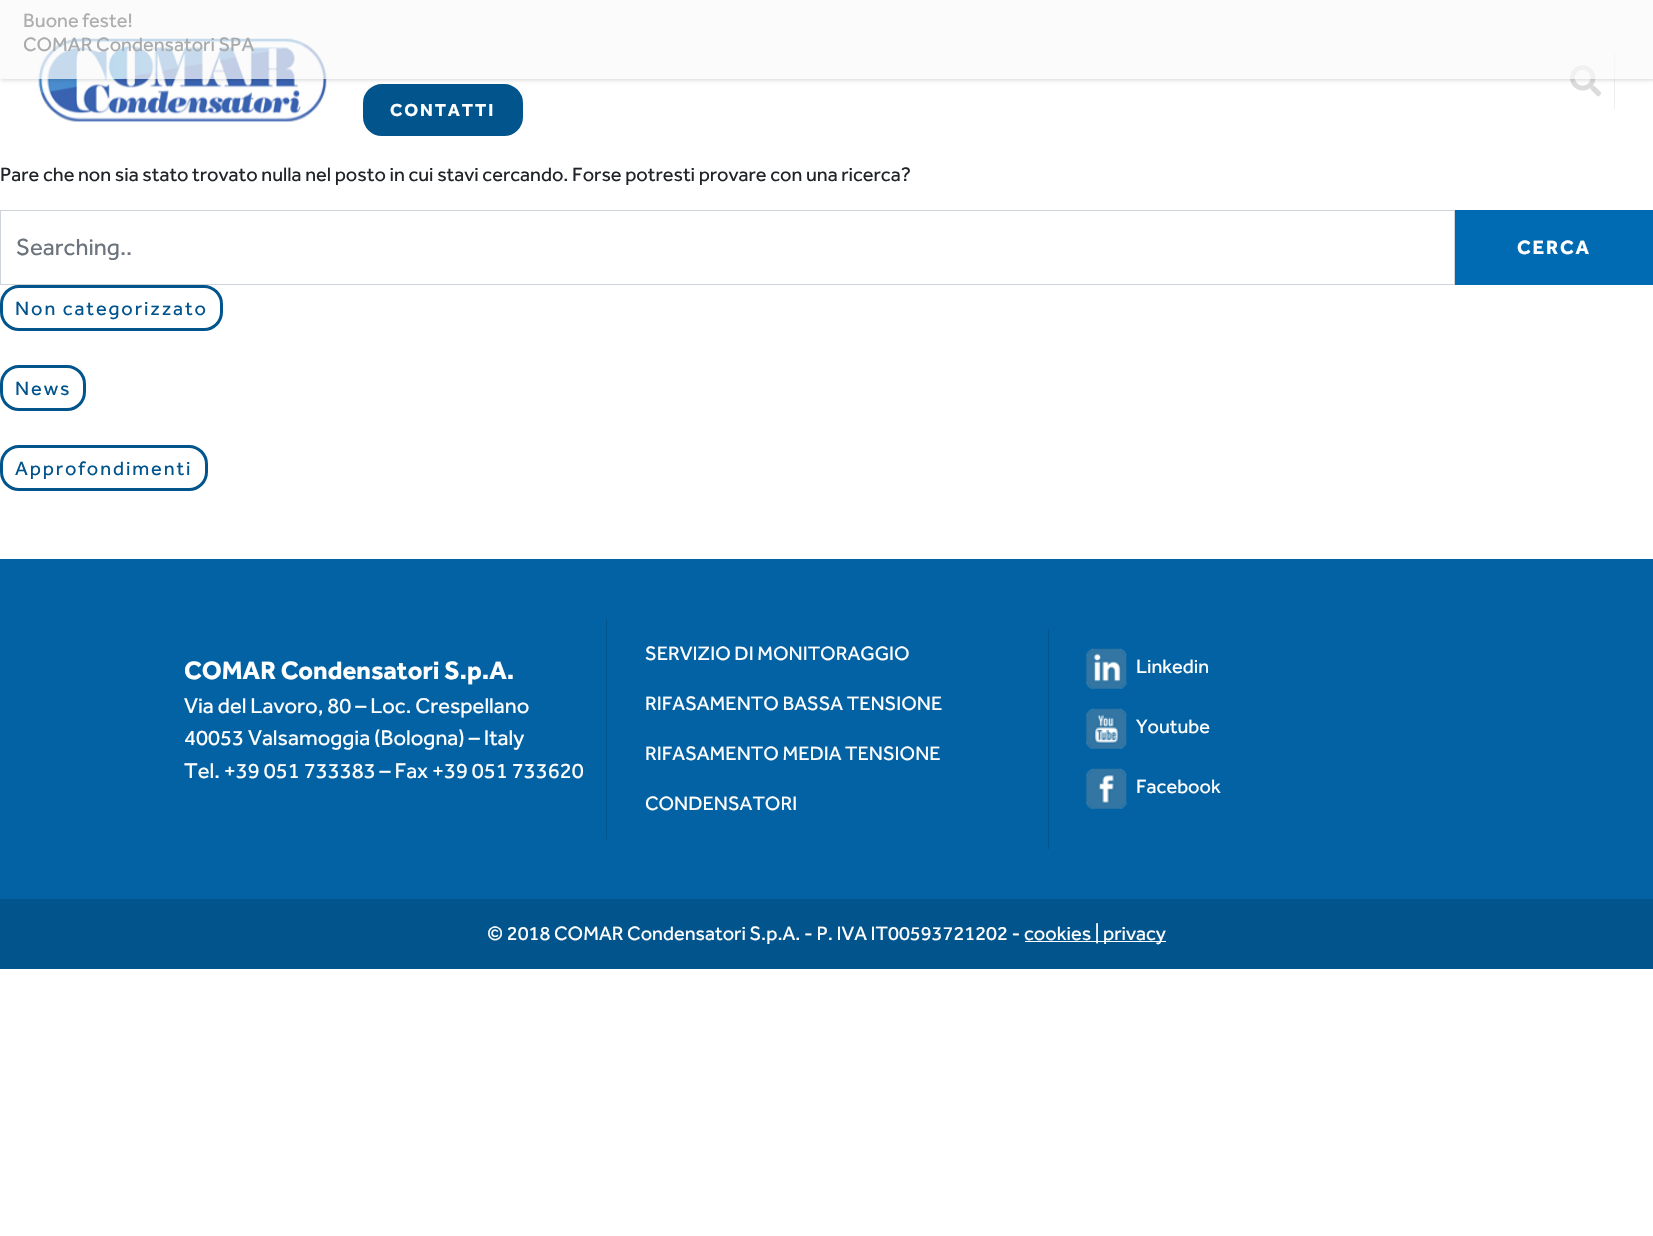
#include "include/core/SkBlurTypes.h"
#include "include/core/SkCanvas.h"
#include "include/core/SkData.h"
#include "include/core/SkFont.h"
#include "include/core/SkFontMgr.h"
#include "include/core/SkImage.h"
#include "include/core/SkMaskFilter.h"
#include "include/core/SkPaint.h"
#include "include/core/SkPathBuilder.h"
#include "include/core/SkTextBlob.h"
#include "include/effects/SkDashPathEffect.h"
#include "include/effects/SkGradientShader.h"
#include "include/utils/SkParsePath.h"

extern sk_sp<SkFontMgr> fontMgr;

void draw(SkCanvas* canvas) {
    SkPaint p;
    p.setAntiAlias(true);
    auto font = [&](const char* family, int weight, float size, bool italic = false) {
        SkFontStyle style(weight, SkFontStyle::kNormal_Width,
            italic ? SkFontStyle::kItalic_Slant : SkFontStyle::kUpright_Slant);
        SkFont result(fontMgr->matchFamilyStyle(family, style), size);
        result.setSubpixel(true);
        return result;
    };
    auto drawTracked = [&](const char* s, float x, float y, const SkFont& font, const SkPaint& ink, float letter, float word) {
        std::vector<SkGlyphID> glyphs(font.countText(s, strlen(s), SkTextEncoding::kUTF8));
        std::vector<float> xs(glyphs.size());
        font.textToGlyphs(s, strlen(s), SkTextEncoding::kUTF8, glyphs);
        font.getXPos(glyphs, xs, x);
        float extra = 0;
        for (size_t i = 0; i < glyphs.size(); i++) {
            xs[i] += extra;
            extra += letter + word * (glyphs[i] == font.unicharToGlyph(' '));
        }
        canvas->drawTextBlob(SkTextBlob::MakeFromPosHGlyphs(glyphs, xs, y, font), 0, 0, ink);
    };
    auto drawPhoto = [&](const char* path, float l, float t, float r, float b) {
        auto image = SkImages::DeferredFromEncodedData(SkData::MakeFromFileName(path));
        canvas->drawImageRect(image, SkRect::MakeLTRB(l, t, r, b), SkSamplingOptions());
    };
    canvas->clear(0xFFFFFFFF);
    drawPhoto("media/1.png", 38, 38, 327, 122);
    p.setColor(0xFF02548C);
    canvas->drawRoundRect(SkRect::MakeLTRB(364.5f, 85.5f, 521.5f, 134.5f), 17.5f, 17.5f, p);
    p.setStyle(SkPaint::kStroke_Style);
    p.setStrokeWidth(3);
    canvas->drawRoundRect(SkRect::MakeLTRB(364.5f, 85.5f, 521.5f, 134.5f), 17.5f, 17.5f, p);
    p.setStyle(SkPaint::kFill_Style);
    p.setColor(0xFFEEEEEE);
    canvas->drawRect(SkRect::MakeLTRB(1614, 53, 1615, 109), p);
    drawPhoto("media/2.png", 1570, 65, 1602, 97);
    canvas->save();
    canvas->clipPath(SkPathBuilder(SkPathFillType::kEvenOdd).moveTo(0, 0).lineTo(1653, 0).lineTo(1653, 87).lineTo(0, 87).close().moveTo(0, -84).lineTo(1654, -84).lineTo(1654, 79).lineTo(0, 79).close().detach(), true);
    p.setColor(0x29020202);
    p.setMaskFilter(SkMaskFilter::MakeBlur(kNormal_SkBlurStyle, 2));
    canvas->drawRect(SkRect::MakeLTRB(1, -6, 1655, 80), p);
    p.setMaskFilter(nullptr);
    canvas->restore();
    p.setColor(0xB5F9F9F9);
    canvas->drawRect(SkRect::MakeLTRB(0, 0, 1653, 79), p);
    auto font1 = font("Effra", 400, 20);
    p.setColor(0xFFAEAEAE);
    canvas->drawString("Buone feste!", 23, 27, font1, p);
    p.setColor(0xFFA8AAAB);
    canvas->drawString("COMAR Condensatori SPA", 23, 51, font1, p);
    auto font2 = font("Effra", 700, 18);
    p.setColor(0xFFFFFFFF);
    drawTracked("CONTATTI", 390, 116, font2, p, 1.9f, 0);
    p.setColor(0xFF212529);
    canvas->drawString("Pare che non sia stato trovato nulla nel posto in cui stavi cercando. Forse potresti provare con una ricerca?", 0, 181, font1, p);
    p.setStyle(SkPaint::kStroke_Style);
    p.setStrokeWidth(1);
    p.setColor(0xFFCED4DA);
    canvas->drawRect(SkRect::MakeLTRB(0.5f, 210.5f, 1454.5f, 284.5f), p);
    auto font3 = font("Effra", 400, 24);
    p.setStyle(SkPaint::kFill_Style);
    p.setColor(0xFF6C757D);
    canvas->drawString("Searching..", 16, 255, font3, p);
    p.setColor(0xFF006AB2);
    canvas->drawRect(SkRect::MakeLTRB(1455, 210, 1653, 285), p);
    auto font4 = font("Effra", 700, 20);
    p.setColor(0xFFFFFFFF);
    drawTracked("CERCA", 1517, 254, font4, p, 1.9f, 0);
    p.setStyle(SkPaint::kStroke_Style);
    p.setStrokeWidth(3);
    p.setColor(0xFF02548C);
    canvas->drawRoundRect(SkRect::MakeLTRB(1.5f, 286.5f, 221.5f, 329.5f), 17.5f, 17.5f, p);
    p.setStyle(SkPaint::kFill_Style);
    drawTracked("Non categorizzato", 15, 315, font1, p, 1.9f, 0);
    p.setStyle(SkPaint::kStroke_Style);
    canvas->drawRoundRect(SkRect::MakeLTRB(1.5f, 366.5f, 84.5f, 409.5f), 17.5f, 17.5f, p);
    p.setStyle(SkPaint::kFill_Style);
    drawTracked("News", 15, 395, font1, p, 1.9f, 0);
    p.setStyle(SkPaint::kStroke_Style);
    canvas->drawRoundRect(SkRect::MakeLTRB(1.5f, 446.5f, 206.5f, 489.5f), 17.5f, 17.5f, p);
    p.setStyle(SkPaint::kFill_Style);
    drawTracked("Approfondimenti", 15, 475, font1, p, 1.9f, 0);
    p.setColor(0xFF0262A3);
    canvas->drawRect(SkRect::MakeLTRB(0, 559, 1653, 899), p);
    auto font5 = font("Effra", 700, 26);
    p.setColor(0xFFFFFFFF);
    canvas->drawString("COMAR Condensatori S.p.A.", 184, 679, font5, p);
    auto font6 = font("Effra", 400, 22);
    {
        const struct { const char* s; float x, y; } items[] = {
            {"Via del Lavoro, 80 – Loc. Crespellano", 184, 713},
            {"40053 Valsamoggia (Bologna) – Italy", 184, 745},
            {"Tel. +39 051 733383 – Fax +39 051 733620", 184, 778},
        };
        for (auto [s, x, y] : items) {
            canvas->drawString(s, x, y, font6, p);
        }
    }
    p.setColor(0xFF02548C);
    canvas->drawRect(SkRect::MakeLTRB(606, 619, 607, 839), p);
    p.setColor(0xFFFFFFFF);
    {
        const struct { const char* s; float x, y; } items[] = {
            {"SERVIZIO DI MONITORAGGIO", 645, 660},
            {"RIFASAMENTO BASSA TENSIONE", 645, 710},
            {"RIFASAMENTO MEDIA TENSIONE", 645, 760},
            {"CONDENSATORI", 645, 810},
        };
        for (auto [s, x, y] : items) {
            canvas->drawString(s, x, y, font1, p);
        }
    }
    p.setColor(0xFF02548C);
    canvas->drawRect(SkRect::MakeLTRB(1048, 629, 1049, 849), p);
    drawPhoto("media/3.png", 1086, 648, 1127, 689);
    p.setColor(0xFFFFFFFF);
    canvas->drawString("Linkedin", 1136, 673, font1, p);
    drawPhoto("media/4.png", 1086, 708, 1127, 749);
    canvas->drawString("Youtube", 1136, 733, font1, p);
    drawPhoto("media/5.png", 1086, 768, 1127, 809);
    canvas->drawString("Facebook", 1136, 793, font1, p);
    p.setColor(0xFF02548C);
    canvas->drawRect(SkRect::MakeLTRB(0, 899, 1653, 969), p);
    p.setColor(0xFFFFFFFF);
    canvas->drawString("© 2018 COMAR Condensatori S.p.A. - P. IVA IT00593721202 -", 487, 940, font1, p);
    canvas->drawRect(SkRect::MakeLTRB(1025, 941, 1166, 942), p);
    canvas->drawString("cookies | privacy", 1024, 940, font1, p);
}
